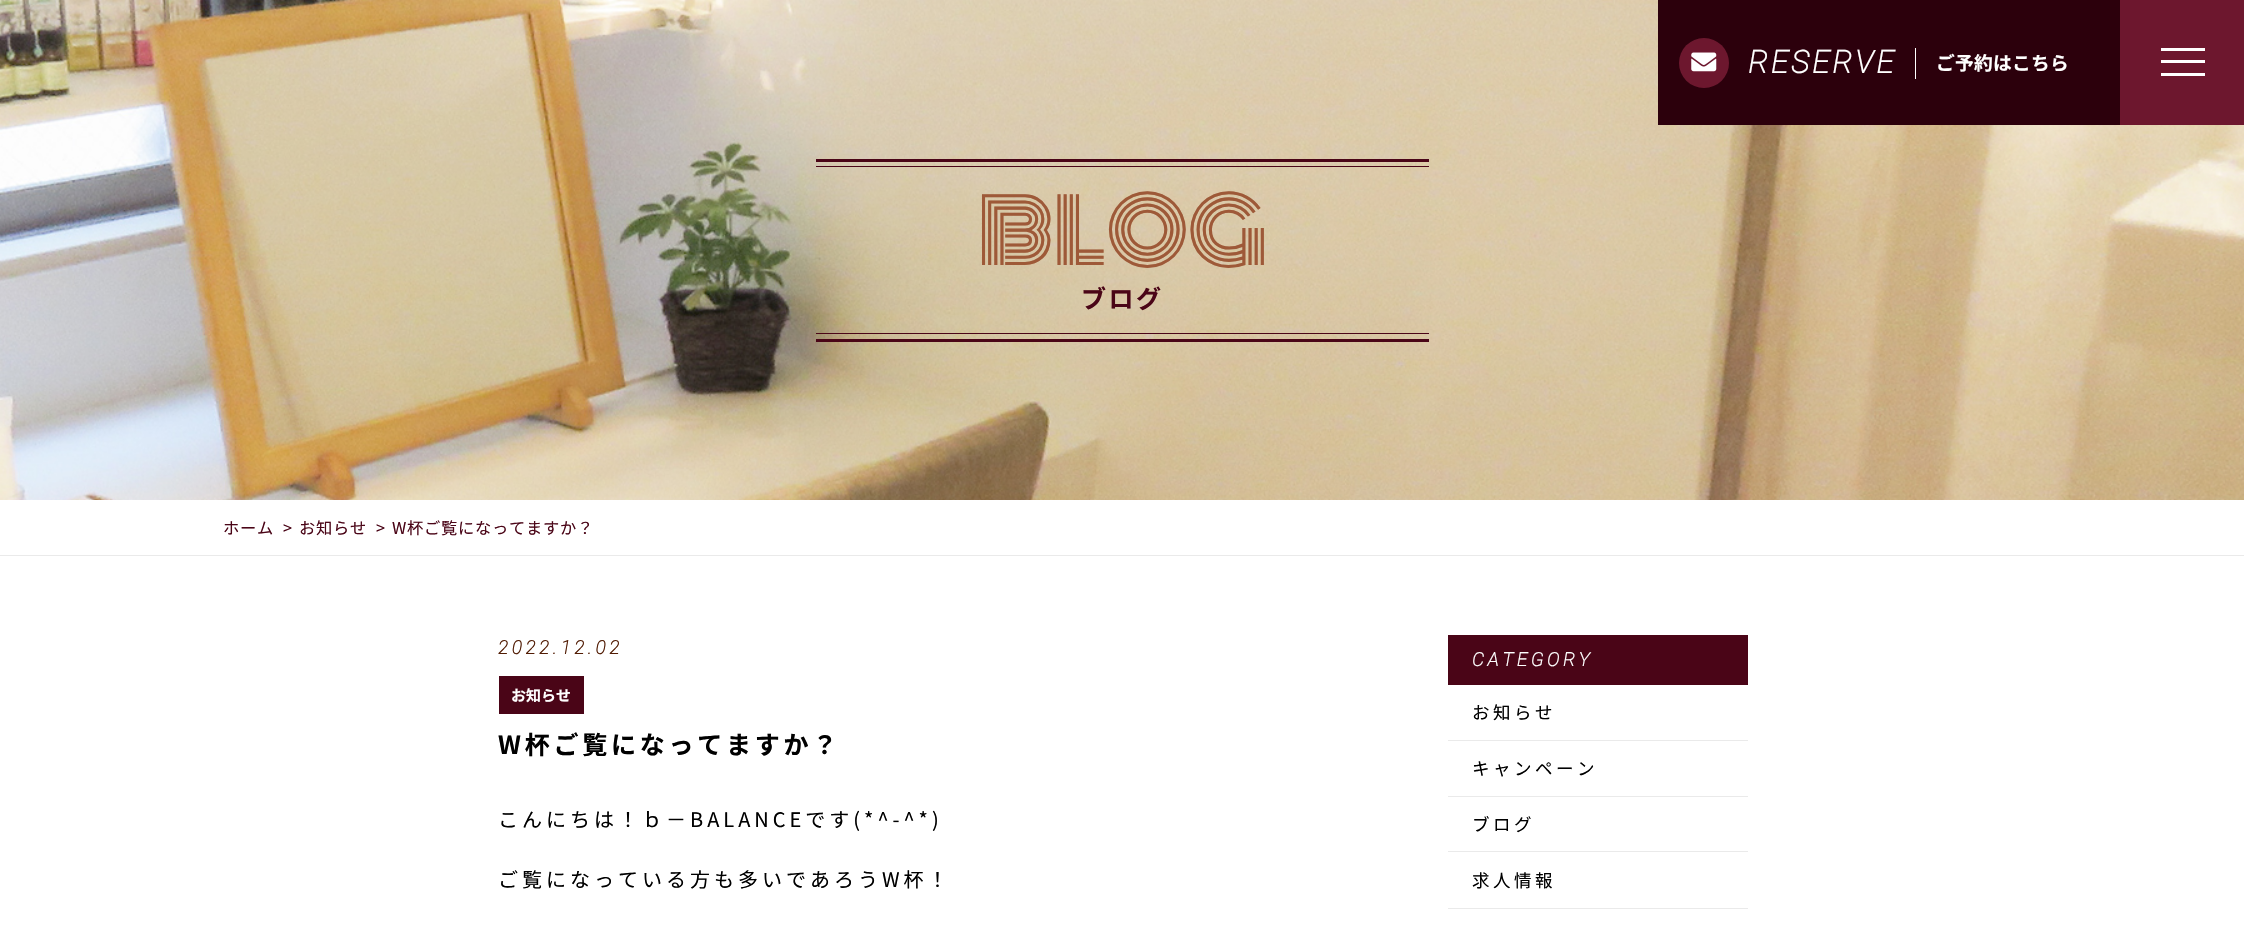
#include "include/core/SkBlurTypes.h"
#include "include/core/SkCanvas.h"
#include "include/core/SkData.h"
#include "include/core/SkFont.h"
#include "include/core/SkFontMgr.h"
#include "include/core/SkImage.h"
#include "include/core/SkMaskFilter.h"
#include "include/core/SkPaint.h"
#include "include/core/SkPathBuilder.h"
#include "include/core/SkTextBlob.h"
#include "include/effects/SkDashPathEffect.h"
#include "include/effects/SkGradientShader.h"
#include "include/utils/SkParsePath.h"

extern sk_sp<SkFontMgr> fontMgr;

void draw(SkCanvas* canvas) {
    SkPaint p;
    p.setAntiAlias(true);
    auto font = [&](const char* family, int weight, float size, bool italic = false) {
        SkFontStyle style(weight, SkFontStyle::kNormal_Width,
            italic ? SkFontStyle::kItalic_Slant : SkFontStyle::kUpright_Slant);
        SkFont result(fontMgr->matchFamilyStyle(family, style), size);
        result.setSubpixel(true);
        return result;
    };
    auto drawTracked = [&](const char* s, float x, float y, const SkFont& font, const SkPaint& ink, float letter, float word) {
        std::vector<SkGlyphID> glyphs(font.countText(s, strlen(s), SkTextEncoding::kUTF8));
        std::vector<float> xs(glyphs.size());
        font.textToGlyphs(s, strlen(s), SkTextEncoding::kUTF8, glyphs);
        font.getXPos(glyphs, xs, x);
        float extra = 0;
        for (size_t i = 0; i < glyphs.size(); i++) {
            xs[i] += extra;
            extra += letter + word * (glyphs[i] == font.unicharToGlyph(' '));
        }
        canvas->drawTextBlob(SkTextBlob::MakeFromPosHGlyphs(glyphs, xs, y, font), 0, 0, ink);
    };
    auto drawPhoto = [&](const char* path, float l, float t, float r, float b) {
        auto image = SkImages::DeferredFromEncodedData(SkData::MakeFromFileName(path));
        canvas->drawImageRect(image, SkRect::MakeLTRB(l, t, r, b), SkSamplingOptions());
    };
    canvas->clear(0xFFFFFFFF);
    drawPhoto("media/2.png", 0, 0, 2244, 500);
    p.setColor(0xFF2C000C);
    canvas->drawRect(SkRect::MakeLTRB(1658, 0, 2120, 125), p);
    p.setColor(0xFF6D172E);
    canvas->drawCircle(1704, 63, 25, p);
    drawPhoto("media/1.png", 1691, 52, 1717, 72);
    p.setColor(0xFFFFFFFF);
    canvas->drawRect(SkRect::MakeLTRB(1915, 48, 1916, 79), p);
    auto font1 = font("Roboto", 700, 31.25f, true);
    drawTracked("RESERVE", 1748, 73, font1, p, 3, 0);
    auto font2 = font("Noto Sans JP", 700, 18.75f);
    drawTracked("ご予約はこちら", 1936, 70, font2, p, 0.25f, 0);
    {
        const struct { float l, t, r, b; SkColor color; } items[] = {
            {2120, 0, 2244, 125, 0xFF6D172E},
            {2161, 60, 2205, 63, 0xFFFFFFFF},
            {2161, 48, 2205, 51, 0xFFFFFFFF},
            {2161, 73, 2205, 76, 0xFFFFFFFF},
            {816, 159, 1429, 162, 0xFF4A0517},
            {816, 339, 1429, 342, 0xFF4A0517},
            {816, 166, 1429, 167, 0xFF4A0517},
            {816, 333, 1429, 334, 0xFF4A0517},
        };
        for (auto [l, t, r, b, color] : items) {
            p.setColor(color);
            canvas->drawRect(SkRect::MakeLTRB(l, t, r, b), p);
        }
    }
    auto font3 = font("Monoton", 400, 87.5f);
    p.setColor(0xFF9E5938);
    canvas->drawString("BLOG", 978, 265, font3, p);
    auto font4 = font("Noto Sans JP", 700, 25);
    p.setColor(0xFF4A0517);
    drawTracked("ブログ", 1081, 308, font4, p, 2.5f, 0);
    p.setColor(0xFFEAEAEA);
    canvas->drawRect(SkRect::MakeLTRB(0, 555, 2244, 556), p);
    auto font5 = font("Noto Sans JP", 400, 16.25f);
    p.setColor(0xFF4A0517);
    {
        const struct { const char* s; float x, y; } items[] = {
            {"ホーム", 223, 534},
            {">", 283, 534},
            {"お知らせ", 299, 534},
            {">", 376, 534},
            {"W杯ご覧になってますか？", 392, 534},
        };
        for (auto [s, x, y] : items) {
            drawTracked(s, x, y, font5, p, 0.75f, 0);
        }
    }
    auto font6 = font("Roboto", 700, 18.75f, true);
    p.setColor(0xFF521D05);
    drawTracked("2022.12.02", 498, 654, font6, p, 3.75f, 0);
    p.setColor(0xFF4A0517);
    canvas->drawRect(SkRect::MakeLTRB(499, 676, 584, 714), p);
    auto font7 = font("Noto Sans JP", 700, 15);
    p.setColor(0xFFFFFFFF);
    canvas->drawString("お知らせ", 511, 701, font7, p);
    p.setColor(0xFF000000);
    drawTracked("W杯ご覧になってますか？", 498, 754, font4, p, 3.75f, 0);
    auto font8 = font("Noto Sans JP", 400, 20);
    drawTracked("こんにちは！ｂ－BALANCEです(*^-^*)", 498, 827, font8, p, 4, 0);
    drawTracked("ご覧になっている方も多いであろうW杯！", 498, 887, font8, p, 4, 0);
    p.setColor(0xFF4A0517);
    canvas->drawRect(SkRect::MakeLTRB(1448, 635, 1748, 685), p);
    p.setColor(0xFFFFFFFF);
    drawTracked("CATEGORY", 1472, 666, font6, p, 3.75f, 0);
    p.setColor(0xFFEAEAEA);
    canvas->drawRect(SkRect::MakeLTRB(1448, 740, 1748, 741), p);
    auto font9 = font("Noto Sans JP", 400, 17.5f);
    p.setColor(0xFF000000);
    drawTracked("お知らせ", 1472, 719, font9, p, 3.5f, 0);
    p.setColor(0xFFEAEAEA);
    canvas->drawRect(SkRect::MakeLTRB(1448, 796, 1748, 797), p);
    p.setColor(0xFF000000);
    drawTracked("キャンペーン", 1472, 775, font9, p, 3.5f, 0);
    p.setColor(0xFFEAEAEA);
    canvas->drawRect(SkRect::MakeLTRB(1448, 851, 1748, 852), p);
    p.setColor(0xFF000000);
    drawTracked("ブログ", 1472, 831, font9, p, 3.5f, 0);
    p.setColor(0xFFEAEAEA);
    canvas->drawRect(SkRect::MakeLTRB(1448, 908, 1748, 909), p);
    p.setColor(0xFF000000);
    drawTracked("求人情報", 1472, 887, font9, p, 3.5f, 0);
}
